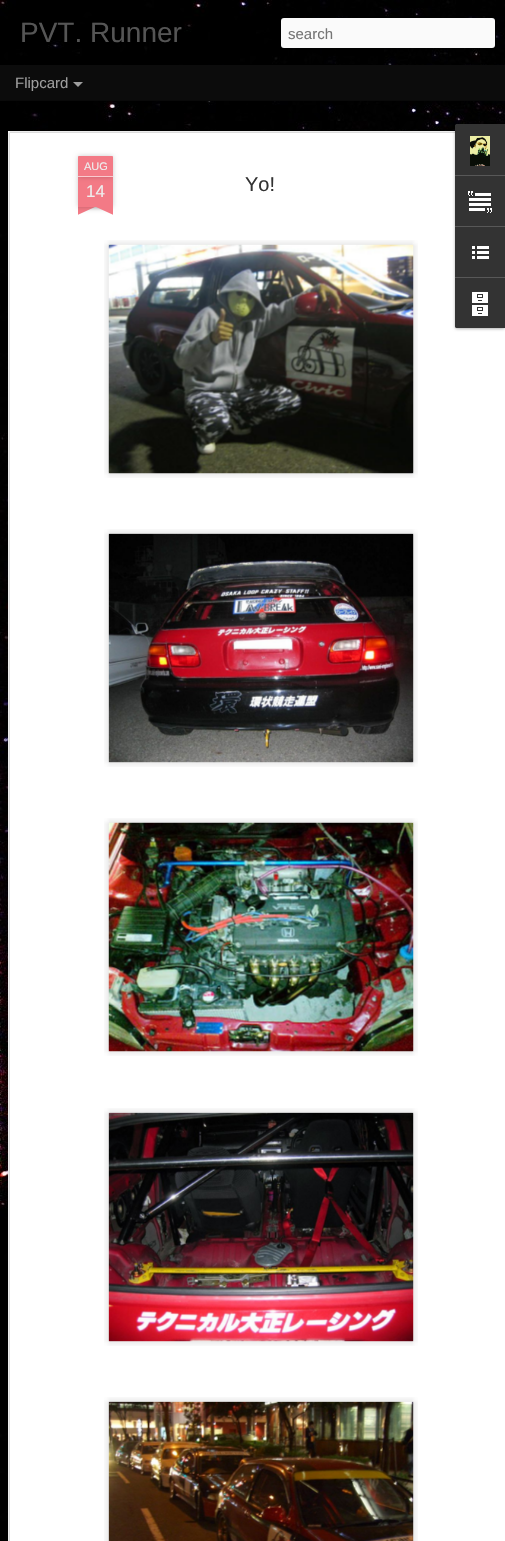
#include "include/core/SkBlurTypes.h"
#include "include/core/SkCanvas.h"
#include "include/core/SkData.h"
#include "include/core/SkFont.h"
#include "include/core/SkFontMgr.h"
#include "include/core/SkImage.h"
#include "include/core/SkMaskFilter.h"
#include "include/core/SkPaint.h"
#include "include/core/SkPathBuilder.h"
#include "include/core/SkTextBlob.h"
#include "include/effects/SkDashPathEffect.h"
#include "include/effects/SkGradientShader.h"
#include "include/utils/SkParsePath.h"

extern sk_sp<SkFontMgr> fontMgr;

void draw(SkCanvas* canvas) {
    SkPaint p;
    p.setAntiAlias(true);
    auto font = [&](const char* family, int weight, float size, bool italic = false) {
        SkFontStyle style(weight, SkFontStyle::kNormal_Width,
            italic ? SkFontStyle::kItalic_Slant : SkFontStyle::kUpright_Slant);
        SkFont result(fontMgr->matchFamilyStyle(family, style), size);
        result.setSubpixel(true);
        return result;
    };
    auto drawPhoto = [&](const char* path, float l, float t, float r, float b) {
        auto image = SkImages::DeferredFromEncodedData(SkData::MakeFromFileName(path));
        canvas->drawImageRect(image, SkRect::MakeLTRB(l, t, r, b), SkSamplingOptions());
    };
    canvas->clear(0xFF0C0C0C);
    drawPhoto("media/2.png", 0, 101, 505, 1541);
    p.setColor(0x80000000);
    p.setMaskFilter(SkMaskFilter::MakeBlur(kNormal_SkBlurStyle, 4));
    canvas->drawRect(SkRect::MakeLTRB(0, 65, 505, 100), p);
    p.setMaskFilter(nullptr);
    drawPhoto("media/1.png", 0, 0, 505, 65);
    auto font1 = font("Liberation Sans", 400, 28);
    p.setColor(0xFF555555);
    canvas->drawString("PVT. Runner", 20, 42, font1, p);
    p.setColor(0xFFFAFAFA);
    canvas->drawRoundRect(SkRect::MakeLTRB(281, 18, 495, 48), 3, 3, p);
    auto font2 = font("Liberation Sans", 400, 15);
    p.setColor(0xFF757575);
    canvas->drawString("search", 288, 39, font2, p);
    p.setColor(0xFF0C0C0C);
    canvas->drawRect(SkRect::MakeLTRB(0, 65, 505, 100), p);
    p.setColor(0xFF9E9E9E);
    canvas->drawString("Flipcard", 15, 88, font2, p);
    canvas->drawPath(SkPathBuilder().moveTo(73, 82).lineTo(83, 82).lineTo(78, 87).close().detach(), p);
    p.setColor(0xFFFFFFFF);
    canvas->drawRect(SkRect::MakeLTRB(8, 131, 505, 1541), p);
    drawPhoto("media/3.png", 8, 131, 455, 1541);
    p.setColor(0x33000000);
    p.setMaskFilter(SkMaskFilter::MakeBlur(kNormal_SkBlurStyle, 2.5f));
    canvas->drawRect(SkRect::MakeLTRB(78, 177, 113, 207), p);
    p.setMaskFilter(nullptr);
    p.setColor(0xFFF37A86);
    canvas->drawRect(SkRect::MakeLTRB(78, 177, 113, 207), p);
    p.setColor(0x33000000);
    p.setMaskFilter(SkMaskFilter::MakeBlur(kNormal_SkBlurStyle, 2.5f));
    canvas->drawRoundRect(SkRect::MakeLTRB(78, 156, 113, 177), 1, 1, p);
    p.setMaskFilter(nullptr);
    p.setColor(0xFFF37A86);
    canvas->drawPath(SkPathBuilder().moveTo(79, 156).lineTo(112, 156).cubicTo(112.5f, 156, 113, 156.5f, 113, 157).lineTo(113, 177).lineTo(78, 177).lineTo(78, 157).cubicTo(78, 156.5f, 78.5f, 156, 79, 156).close().detach(), p);
    p.setColor(0xFFFACACF);
    canvas->drawRect(SkRect::MakeLTRB(78, 176, 113, 177), p);
    auto font3 = font("Liberation Sans", 400, 11);
    p.setColor(0xFFEEEEEE);
    canvas->drawString("AUG", 84, 170, font3, p);
    auto font4 = font("Liberation Sans", 400, 17);
    canvas->drawString("14", 86, 197, font4, p);
    canvas->save();
    canvas->clipRect(SkRect::MakeLTRB(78, 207, 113, 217));
    p.setColor(0x33000000);
    p.setMaskFilter(SkMaskFilter::MakeBlur(kNormal_SkBlurStyle, 2.5f));
    canvas->drawRect(SkRect::MakeLTRB(69, 197, 119, 207), p);
    p.setMaskFilter(nullptr);
    canvas->restore();
    canvas->save();
    canvas->clipRect(SkRect::MakeLTRB(78, 207, 113, 217));
    p.setColor(0xFFF37A86);
    canvas->drawPath(SkPathBuilder().moveTo(69, 208).lineTo(115, 187).lineTo(119, 196).lineTo(73, 217).close().detach(), p);
    canvas->restore();
    canvas->save();
    canvas->clipRect(SkRect::MakeLTRB(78, 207, 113, 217));
    p.setColor(0x33000000);
    p.setMaskFilter(SkMaskFilter::MakeBlur(kNormal_SkBlurStyle, 2.5f));
    canvas->drawRect(SkRect::MakeLTRB(72, 197, 122, 207), p);
    p.setMaskFilter(nullptr);
    canvas->restore();
    canvas->save();
    canvas->clipRect(SkRect::MakeLTRB(78, 207, 113, 217));
    p.setColor(0xFFF37A86);
    canvas->drawPath(SkPathBuilder().moveTo(76, 187).lineTo(122, 208).lineTo(118, 217).lineTo(72, 196).close().detach(), p);
    canvas->restore();
    auto font5 = font("Liberation Sans", 400, 20);
    p.setColor(0xFF333333);
    canvas->drawString("Yo!", 245, 191, font5, p);
    drawPhoto("media/4.png", 104, 240, 418, 478);
    drawPhoto("media/5.png", 108, 244, 414, 474);
    drawPhoto("media/6.png", 104, 529, 418, 767);
    drawPhoto("media/7.png", 108, 533, 414, 763);
    drawPhoto("media/8.png", 104, 818, 418, 1056);
    drawPhoto("media/9.png", 108, 822, 414, 1052);
    drawPhoto("media/10.png", 104, 1108, 418, 1346);
    drawPhoto("media/11.png", 108, 1112, 414, 1342);
    drawPhoto("media/12.png", 104, 1397, 418, 1541);
    drawPhoto("media/13.png", 108, 1401, 414, 1541);
    p.setColor(0x4D000000);
    p.setMaskFilter(SkMaskFilter::MakeBlur(kNormal_SkBlurStyle, 1.5f));
    canvas->drawRoundRect(SkRect::MakeLTRB(455, 125, 505, 329), 2, 2, p);
    p.setMaskFilter(nullptr);
    p.setColor(0xFF333333);
    canvas->drawPath(SkPathBuilder().moveTo(457, 124).lineTo(505, 124).lineTo(505, 328).lineTo(457, 328).cubicTo(456, 328, 455, 327, 455, 326).lineTo(455, 126).cubicTo(455, 125, 456, 124, 457, 124).close().detach(), p);
    canvas->drawPath(SkPathBuilder().moveTo(457, 124).lineTo(505, 124).lineTo(505, 175).lineTo(455, 175).lineTo(455, 126).cubicTo(455, 125, 456, 124, 457, 124).close().detach(), p);
    drawPhoto("media/14.png", 470, 136, 490, 166);
    p.setColor(0xFF585858);
    canvas->drawRect(SkRect::MakeLTRB(455, 175, 505, 176), p);
    drawPhoto("media/15.png", 468, 191, 492, 213);
    canvas->drawRect(SkRect::MakeLTRB(455, 226, 505, 227), p);
    drawPhoto("media/16.png", 472, 246, 489, 259);
    p.setColor(0xFF333333);
    canvas->drawPath(SkPathBuilder().moveTo(455, 277).lineTo(505, 277).lineTo(505, 328).lineTo(457, 328).cubicTo(456, 328, 455, 327, 455, 326).close().detach(), p);
    p.setColor(0xFF585858);
    canvas->drawRect(SkRect::MakeLTRB(455, 277, 505, 278), p);
    drawPhoto("media/17.png", 472, 292, 488, 316);
}
